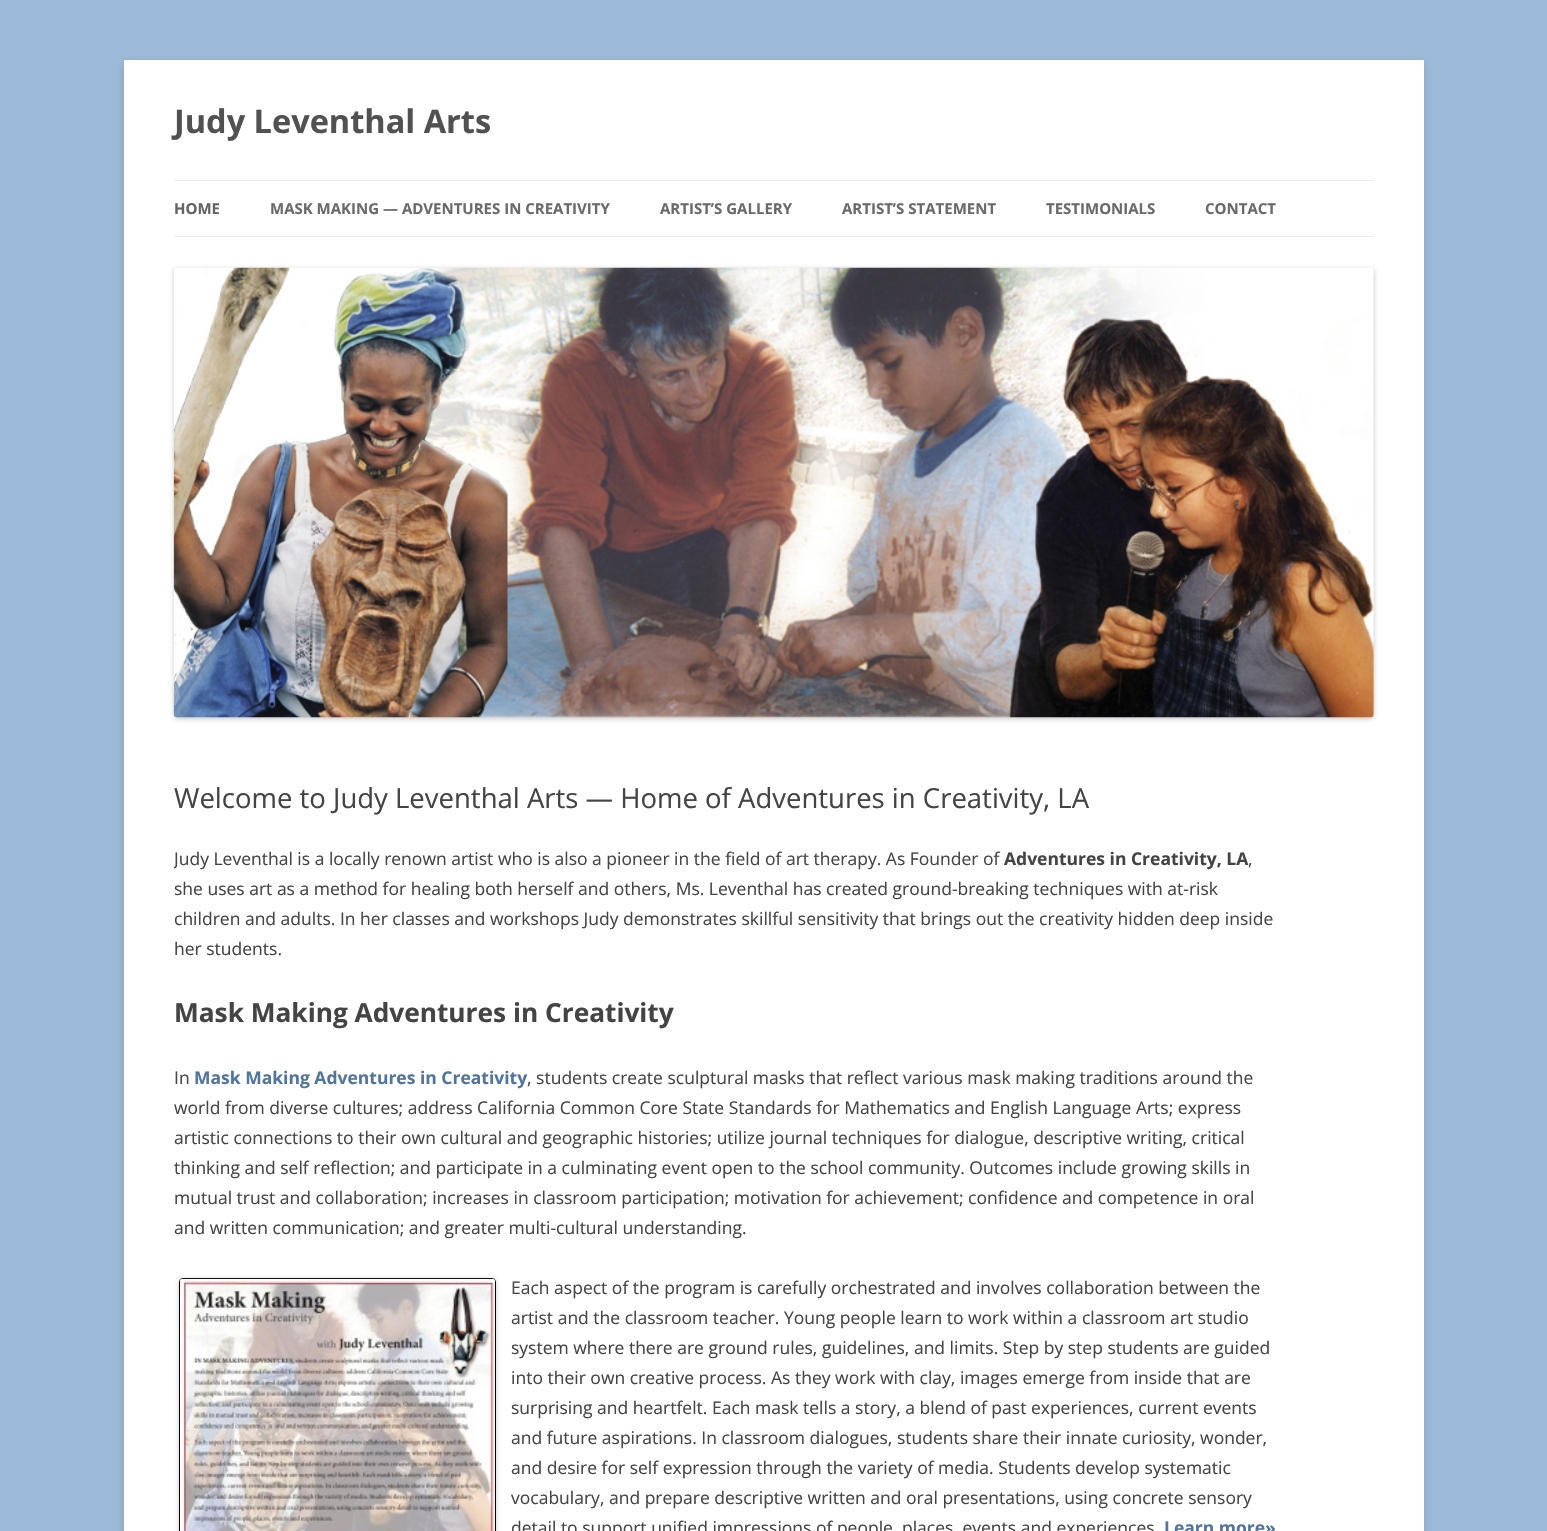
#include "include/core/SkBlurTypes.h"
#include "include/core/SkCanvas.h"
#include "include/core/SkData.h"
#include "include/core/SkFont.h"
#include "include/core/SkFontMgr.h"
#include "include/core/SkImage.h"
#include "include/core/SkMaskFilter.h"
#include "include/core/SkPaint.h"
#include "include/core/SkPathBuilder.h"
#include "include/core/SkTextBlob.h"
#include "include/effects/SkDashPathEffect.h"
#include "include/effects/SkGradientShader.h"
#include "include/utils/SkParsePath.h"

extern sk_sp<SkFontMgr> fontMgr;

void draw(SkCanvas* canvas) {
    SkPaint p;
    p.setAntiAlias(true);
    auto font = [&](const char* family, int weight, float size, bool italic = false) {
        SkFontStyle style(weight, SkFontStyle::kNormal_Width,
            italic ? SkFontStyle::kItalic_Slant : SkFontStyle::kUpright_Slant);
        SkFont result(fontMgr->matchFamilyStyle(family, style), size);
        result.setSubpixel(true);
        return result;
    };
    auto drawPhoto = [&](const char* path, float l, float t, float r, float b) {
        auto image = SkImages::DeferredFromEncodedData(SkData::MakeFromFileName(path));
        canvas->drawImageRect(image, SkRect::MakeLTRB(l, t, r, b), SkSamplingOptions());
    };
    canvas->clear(0xFF9CB9D9);
    p.setColor(0x4D646464);
    p.setMaskFilter(SkMaskFilter::MakeBlur(kNormal_SkBlurStyle, 4));
    canvas->drawRect(SkRect::MakeLTRB(124, 63, 1424, 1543), p);
    p.setMaskFilter(nullptr);
    p.setColor(0xFFFFFFFF);
    canvas->drawRect(SkRect::MakeLTRB(124, 60, 1424, 1531), p);
    auto font1 = font("Open Sans", 700, 32.5f);
    p.setColor(0xFF515151);
    canvas->drawString("Judy Leventhal Arts", 174, 133, font1, p);
    p.setColor(0xFFEDEDED);
    canvas->drawRect(SkRect::MakeLTRB(174, 180, 1374, 181), p);
    canvas->drawRect(SkRect::MakeLTRB(174, 236, 1374, 237), p);
    auto font2 = font("Open Sans", 700, 15);
    p.setColor(0xFF636363);
    canvas->drawString("HOME", 174, 214, font2, p);
    p.setColor(0xFF6A6A6A);
    {
        const struct { const char* s; float x, y; } items[] = {
            {"MASK MAKING — ADVENTURES IN CREATIVITY", 270, 214},
            {"ARTIST’S GALLERY", 660, 214},
            {"ARTIST’S STATEMENT", 842, 214},
            {"TESTIMONIALS", 1046, 214},
            {"CONTACT", 1205, 214},
        };
        for (auto [s, x, y] : items) {
            canvas->drawString(s, x, y, font2, p);
        }
    }
    p.setColor(0x33000000);
    p.setMaskFilter(SkMaskFilter::MakeBlur(kNormal_SkBlurStyle, 2.5f));
    canvas->drawRoundRect(SkRect::MakeLTRB(174, 269, 1374, 719), 4, 4, p);
    p.setMaskFilter(nullptr);
    drawPhoto("media/1.png", 173, 267, 1374, 718);
    auto font3 = font("Open Sans", 400, 27.5f);
    p.setColor(0xFF444444);
    canvas->drawString("Welcome to Judy Leventhal Arts — Home of Adventures in Creativity, LA", 174, 808, font3, p);
    canvas->save();
    canvas->clipRect(SkRect::MakeLTRB(174, 780, 1278, 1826));
    auto font4 = font("Open Sans", 400, 17.5f);
    canvas->drawString("Judy Leventhal is a locally renown artist who is also a pioneer in the field of art therapy. As Founder of", 174, 865, font4, p);
    canvas->restore();
    auto font5 = font("Open Sans", 700, 17.5f);
    canvas->drawString("Adventures in Creativity, LA", 1004, 865, font5, p);
    {
        const struct { const char* s; float x, y; } items[] = {
            {",", 1248, 865},
            {"she uses art as a method for healing both herself and others, Ms. Leventhal has created ground-breaking techniques with at-risk", 174, 895},
            {"children and adults. In her classes and workshops Judy demonstrates skillful sensitivity that brings out the creativity hidden deep inside", 174, 925},
            {"her students.", 174, 955},
        };
        for (auto [s, x, y] : items) {
            canvas->drawString(s, x, y, font4, p);
        }
    }
    auto font6 = font("Open Sans", 700, 26.25f);
    canvas->drawString("Mask Making Adventures in Creativity", 174, 1022, font6, p);
    canvas->drawString("In", 174, 1084, font4, p);
    p.setColor(0xFF51759D);
    canvas->drawString("Mask Making Adventures in Creativity", 194, 1084, font5, p);
    p.setColor(0xFF444444);
    {
        const struct { const char* s; float x, y; } items[] = {
            {", students create sculptural masks that reflect various mask making traditions around the", 527, 1084},
            {"world from diverse cultures; address California Common Core State Standards for Mathematics and English Language Arts; express", 174, 1114},
            {"artistic connections to their own cultural and geographic histories; utilize journal techniques for dialogue, descriptive writing, critical", 174, 1144},
            {"thinking and self reflection; and participate in a culminating event open to the school community. Outcomes include growing skills in", 174, 1174},
            {"mutual trust and collaboration; increases in classroom participation; motivation for achievement; confidence and competence in oral", 174, 1204},
            {"and written communication; and greater multi-cultural understanding.", 174, 1234},
        };
        for (auto [s, x, y] : items) {
            canvas->drawString(s, x, y, font4, p);
        }
    }
    p.setColor(0x33000000);
    p.setMaskFilter(SkMaskFilter::MakeBlur(kNormal_SkBlurStyle, 2.5f));
    canvas->drawRoundRect(SkRect::MakeLTRB(179, 1279, 496, 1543), 4, 4, p);
    p.setMaskFilter(nullptr);
    p.setStyle(SkPaint::kStroke_Style);
    p.setStrokeWidth(1);
    p.setColor(0xFF000000);
    canvas->drawRoundRect(SkRect::MakeLTRB(179.5f, 1278.5f, 495.5f, 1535.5f), 3.5f, 3.5f, p);
    drawPhoto("media/2.png", 180, 1278, 495, 1531);
    p.setStyle(SkPaint::kFill_Style);
    p.setColor(0xFF444444);
    {
        const struct { const char* s; float x, y; } items[] = {
            {"Each aspect of the program is carefully orchestrated and involves collaboration between the", 511, 1294},
            {"artist and the classroom teacher. Young people learn to work within a classroom art studio", 511, 1324},
            {"system where there are ground rules, guidelines, and limits. Step by step students are guided", 511, 1354},
            {"into their own creative process. As they work with clay, images emerge from inside that are", 511, 1384},
            {"surprising and heartfelt. Each mask tells a story, a blend of past experiences, current events", 511, 1414},
            {"and future aspirations. In classroom dialogues, students share their innate curiosity, wonder,", 511, 1444},
            {"and desire for self expression through the variety of media. Students develop systematic", 511, 1474},
            {"vocabulary, and prepare descriptive written and oral presentations, using concrete sensory", 511, 1504},
            {"detail to support unified impressions of people, places, events and experiences", 511, 1534},
        };
        for (auto [s, x, y] : items) {
            canvas->drawString(s, x, y, font4, p);
        }
    }
    p.setColor(0xFF51759D);
    canvas->drawString("Learn more»", 1164, 1534, font5, p);
}
